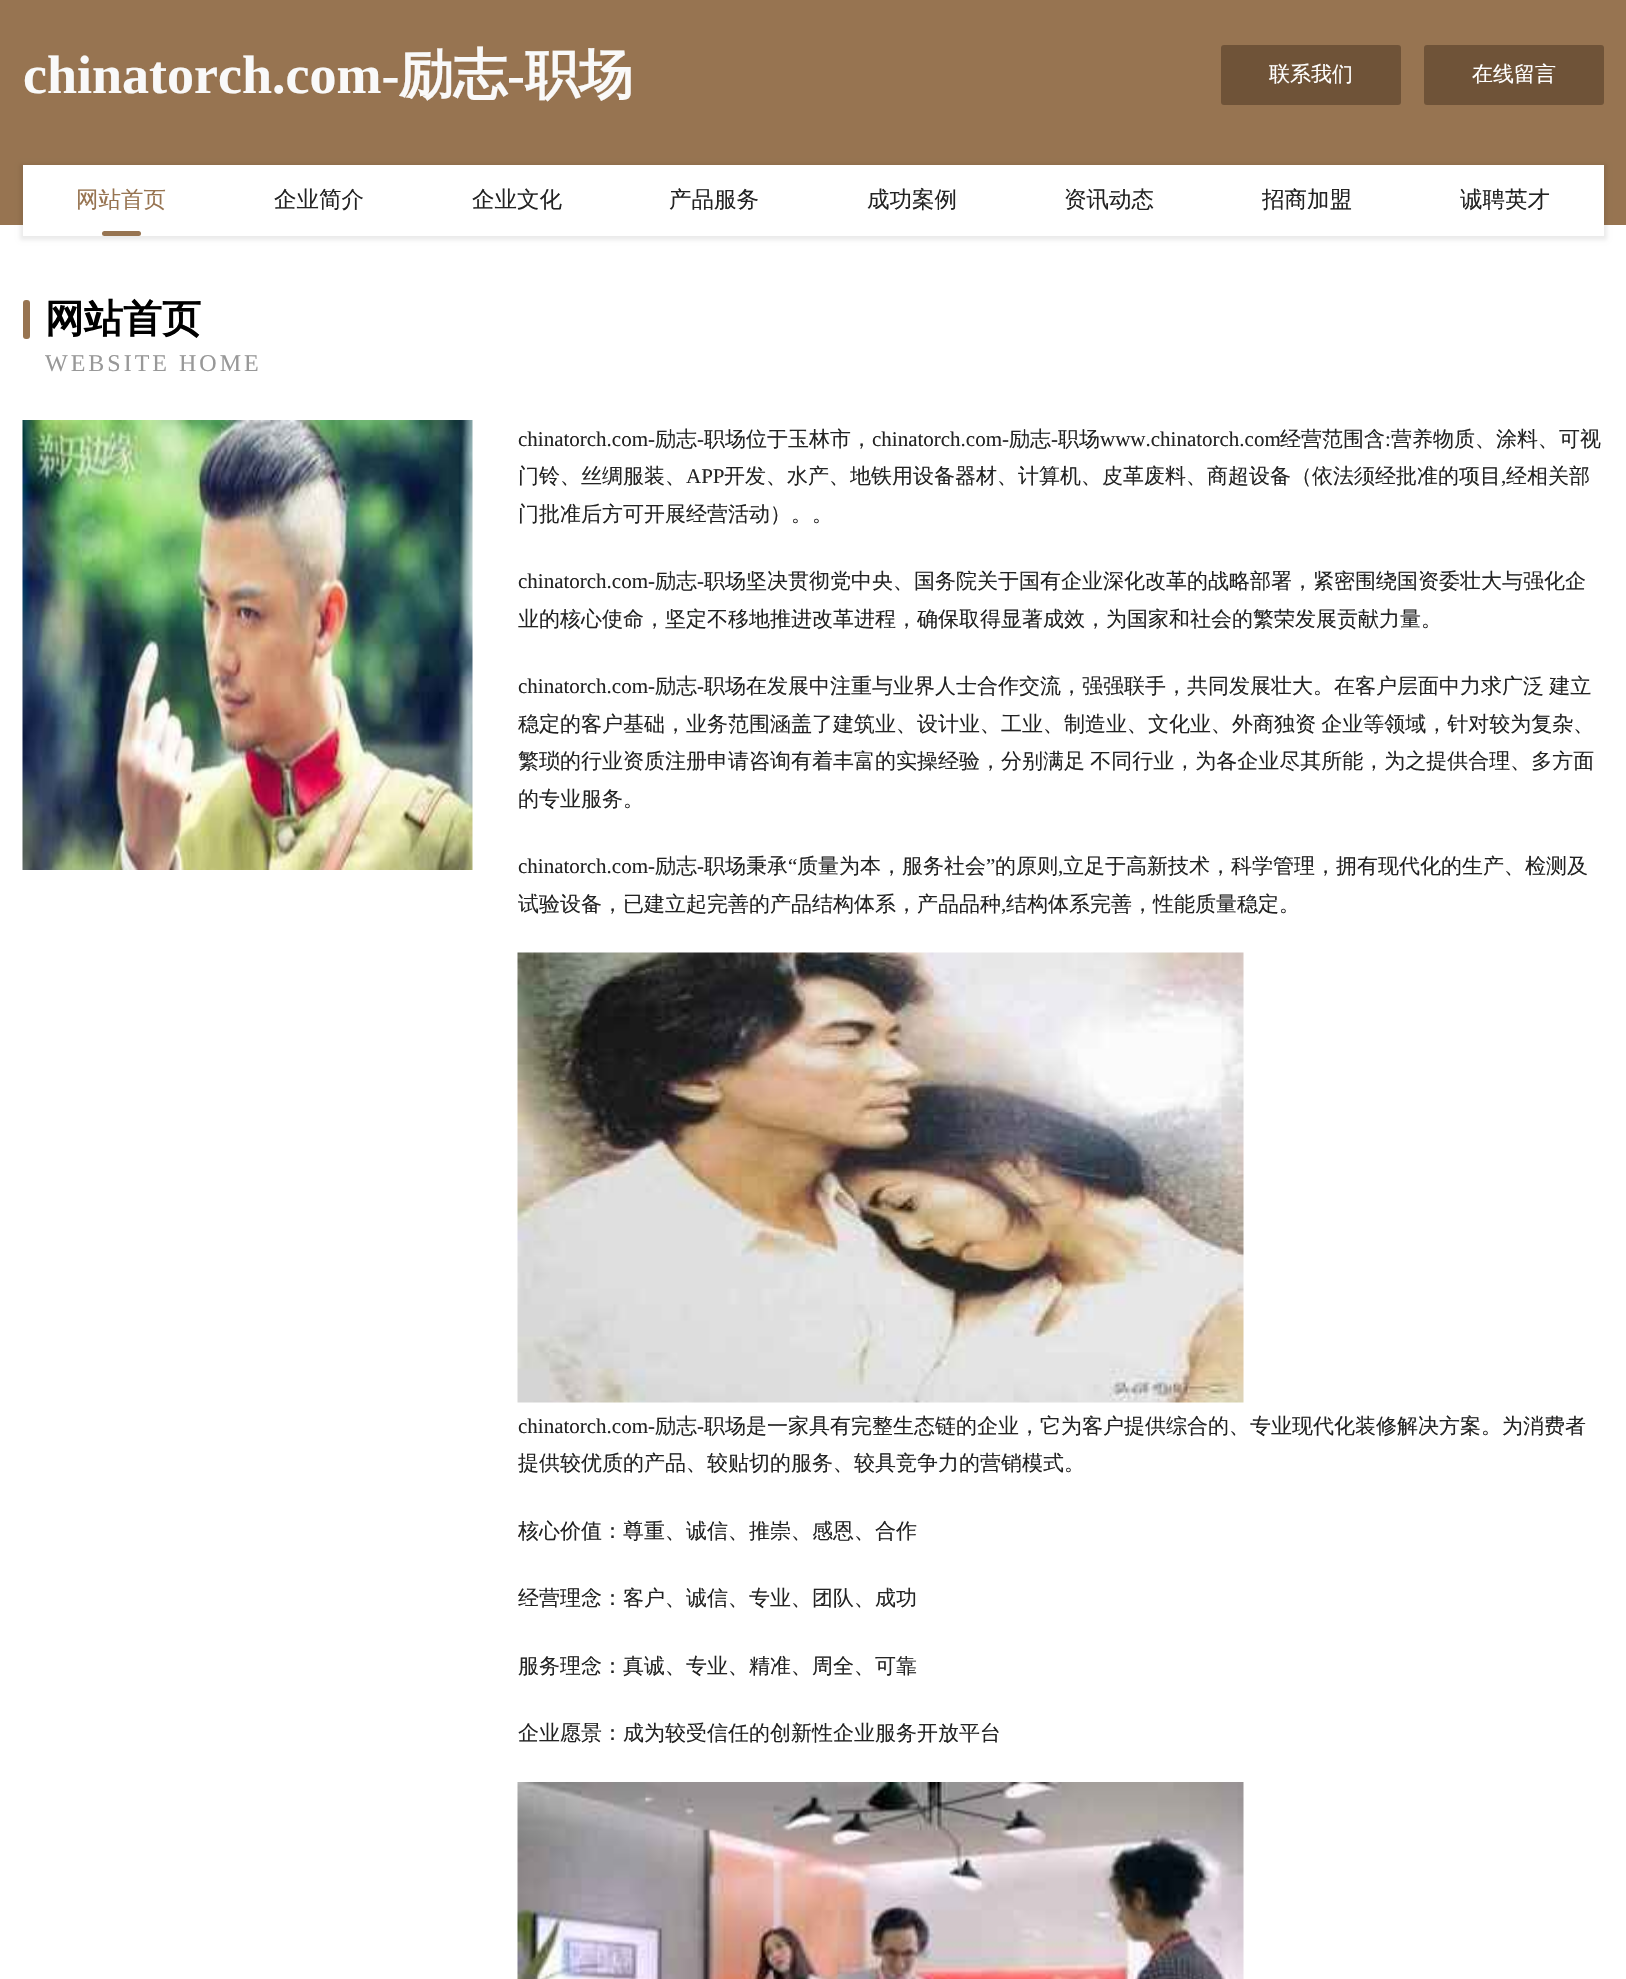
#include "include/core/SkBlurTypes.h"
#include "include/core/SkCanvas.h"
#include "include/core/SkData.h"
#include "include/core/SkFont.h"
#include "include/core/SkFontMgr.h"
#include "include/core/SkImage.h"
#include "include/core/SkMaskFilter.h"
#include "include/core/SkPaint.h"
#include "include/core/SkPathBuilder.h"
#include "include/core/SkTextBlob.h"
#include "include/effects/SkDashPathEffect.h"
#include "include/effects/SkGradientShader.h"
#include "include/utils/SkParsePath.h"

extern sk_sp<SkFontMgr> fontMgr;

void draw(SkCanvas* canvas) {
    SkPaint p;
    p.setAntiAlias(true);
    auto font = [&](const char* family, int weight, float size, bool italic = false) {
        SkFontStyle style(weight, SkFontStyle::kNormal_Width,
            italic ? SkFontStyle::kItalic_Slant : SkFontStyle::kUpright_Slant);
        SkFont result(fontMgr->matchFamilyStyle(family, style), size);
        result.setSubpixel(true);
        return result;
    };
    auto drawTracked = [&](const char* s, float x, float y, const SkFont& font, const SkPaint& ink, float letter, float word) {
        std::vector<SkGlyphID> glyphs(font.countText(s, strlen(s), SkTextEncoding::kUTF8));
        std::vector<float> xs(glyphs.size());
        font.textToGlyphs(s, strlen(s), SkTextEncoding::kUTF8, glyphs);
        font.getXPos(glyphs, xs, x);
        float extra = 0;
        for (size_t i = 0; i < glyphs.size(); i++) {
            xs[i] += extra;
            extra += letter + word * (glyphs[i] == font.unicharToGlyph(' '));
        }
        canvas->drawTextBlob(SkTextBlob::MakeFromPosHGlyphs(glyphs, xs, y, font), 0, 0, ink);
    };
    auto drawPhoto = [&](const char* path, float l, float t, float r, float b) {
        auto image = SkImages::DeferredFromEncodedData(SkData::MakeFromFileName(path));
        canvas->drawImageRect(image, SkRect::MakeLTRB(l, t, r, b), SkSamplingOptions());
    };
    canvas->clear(0xFFFFFFFF);
    p.setColor(0xFF977451);
    canvas->drawRect(SkRect::MakeLTRB(0, 0, 1626, 225), p);
    auto font1 = font("Liberation Serif", 700, 54);
    p.setColor(0xFFF9F9F9);
    canvas->drawString("chinatorch.com-", 23, 93, font1, p);
    auto font2 = font("WenQuanYi Zen Hei", 700, 54);
    canvas->drawString("励志", 399, 93, font2, p);
    canvas->drawString("-", 507, 93, font1, p);
    canvas->drawString("职场", 525, 93, font2, p);
    p.setColor(0xFF6F5338);
    canvas->drawRoundRect(SkRect::MakeLTRB(1221, 45, 1401, 105), 3, 3, p);
    auto font3 = font("WenQuanYi Zen Hei", 500, 21);
    p.setColor(0xFFFFFFFF);
    canvas->drawString("联系我们", 1269, 81, font3, p);
    p.setColor(0xFF6F5338);
    canvas->drawRoundRect(SkRect::MakeLTRB(1424, 45, 1604, 105), 3, 3, p);
    p.setColor(0xFFFFFFFF);
    canvas->drawString("在线留言", 1472, 81, font3, p);
    p.setColor(0x14000000);
    p.setMaskFilter(SkMaskFilter::MakeBlur(kNormal_SkBlurStyle, 2));
    canvas->drawRect(SkRect::MakeLTRB(20, 164, 1607, 240), p);
    p.setMaskFilter(nullptr);
    p.setColor(0xFFFFFFFF);
    canvas->drawRect(SkRect::MakeLTRB(23, 165, 1604, 236), p);
    auto font4 = font("WenQuanYi Zen Hei", 500, 22.5f);
    p.setColor(0xFF977451);
    canvas->drawString("网站首页", 76, 207, font4, p);
    canvas->drawRoundRect(SkRect::MakeLTRB(102, 231, 141, 236), 2.5f, 2.5f, p);
    p.setColor(0xFF232323);
    {
        const struct { const char* s; float x, y; } items[] = {
            {"企业简介", 274, 207},
            {"企业文化", 472, 207},
            {"产品服务", 669, 207},
            {"成功案例", 867, 207},
            {"资讯动态", 1064, 207},
            {"招商加盟", 1262, 207},
            {"诚聘英才", 1460, 207},
        };
        for (auto [s, x, y] : items) {
            canvas->drawString(s, x, y, font4, p);
        }
    }
    p.setColor(0xFF977451);
    canvas->drawRoundRect(SkRect::MakeLTRB(23, 300, 30, 339), 3, 3, p);
    auto font5 = font("WenQuanYi Zen Hei", 700, 39);
    p.setColor(0xFF000000);
    canvas->drawString("网站首页", 45, 332, font5, p);
    auto font6 = font("Liberation Serif", 400, 24);
    p.setColor(0xFF989898);
    drawTracked("WEBSITE HOME", 45, 371, font6, p, 3, 0);
    drawPhoto("media/1.png", 22, 420, 473, 870);
    auto font7 = font("Liberation Serif", 400, 21);
    p.setColor(0xFF232323);
    canvas->drawString("chinatorch.com-", 518, 446, font7, p);
    canvas->drawString("励志", 655, 446, font3, p);
    canvas->drawString("-", 697, 446, font7, p);
    canvas->drawString("职场位于玉林市，", 704, 446, font3, p);
    canvas->drawString("chinatorch.com-", 872, 446, font7, p);
    canvas->drawString("励志", 1009, 446, font3, p);
    canvas->drawString("-", 1051, 446, font7, p);
    canvas->drawString("职场", 1058, 446, font3, p);
    canvas->drawString("www.chinatorch.com", 1100, 446, font7, p);
    canvas->drawString("经营范围含", 1280, 446, font3, p);
    canvas->drawString(":", 1385, 446, font7, p);
    canvas->drawString("营养物质、涂料、可视", 1391, 446, font3, p);
    canvas->drawString("门铃、丝绸服装、", 518, 483, font3, p);
    canvas->drawString("APP", 686, 483, font7, p);
    canvas->drawString("开发、水产、地铁用设备器材、计算机、皮革废料、商超设备（依法须经批准的项目", 724, 483, font3, p);
    canvas->drawString(",", 1501, 483, font7, p);
    canvas->drawString("经相关部", 1506, 483, font3, p);
    canvas->drawString("门批准后方可开展经营活动）。。", 518, 521, font3, p);
    canvas->drawString("chinatorch.com-", 518, 588, font7, p);
    canvas->drawString("励志", 655, 588, font3, p);
    canvas->drawString("-", 697, 588, font7, p);
    canvas->drawString("职场坚决贯彻党中央、国务院关于国有企业深化改革的战略部署，紧密围绕国资委壮大与强化企", 704, 588, font3, p);
    canvas->drawString("业的核心使命，坚定不移地推进改革进程，确保取得显著成效，为国家和社会的繁荣发展贡献力量。", 518, 626, font3, p);
    canvas->drawString("chinatorch.com-", 518, 693, font7, p);
    canvas->drawString("励志", 655, 693, font3, p);
    canvas->drawString("-", 697, 693, font7, p);
    {
        const struct { const char* s; float x, y; } items[] = {
            {"职场在发展中注重与业界人士合作交流，强强联手，共同发展壮大。在客户层面中力求广泛 建立", 704, 693},
            {"稳定的客户基础，业务范围涵盖了建筑业、设计业、工业、制造业、文化业、外商独资 企业等领域，针对较为复杂、", 518, 731},
            {"繁琐的行业资质注册申请咨询有着丰富的实操经验，分别满足 不同行业，为各企业尽其所能，为之提供合理、多方面", 518, 768},
        };
        for (auto [s, x, y] : items) {
            drawTracked(s, x, y, font3, p, 0, -1);
        }
    }
    canvas->drawString("的专业服务。", 518, 806, font3, p);
    canvas->drawString("chinatorch.com-", 518, 873, font7, p);
    canvas->drawString("励志", 655, 873, font3, p);
    canvas->drawString("职场秉承", 704, 873, font3, p);
    canvas->drawString("“", 788, 873, font7, p);
    canvas->drawString("质量为本，服务社会", 797, 873, font3, p);
    canvas->drawString("”", 986, 873, font7, p);
    canvas->drawString("的原则", 995, 873, font3, p);
    canvas->drawString("立足于高新技术，科学管理，拥有现代化的生产、检测及", 1063, 873, font3, p);
    canvas->drawString("-", 697, 873, font7, p);
    canvas->drawString(",", 1058, 873, font7, p);
    canvas->drawString("试验设备，已建立起完善的产品结构体系，产品品种", 518, 911, font3, p);
    canvas->drawString(",", 1001, 911, font7, p);
    canvas->drawString("结构体系完善，性能质量稳定。", 1006, 911, font3, p);
    drawPhoto("media/2.png", 517, 952, 1244, 1403);
    canvas->drawString("chinatorch.com-", 518, 1433, font7, p);
    canvas->drawString("励志", 655, 1433, font3, p);
    canvas->drawString("-", 697, 1433, font7, p);
    {
        const struct { const char* s; float x, y; } items[] = {
            {"职场是一家具有完整生态链的企业，它为客户提供综合的、专业现代化装修解决方案。为消费者", 704, 1433},
            {"提供较优质的产品、较贴切的服务、较具竞争力的营销模式。", 518, 1470},
            {"核心价值：尊重、诚信、推崇、感恩、合作", 518, 1538},
            {"经营理念：客户、诚信、专业、团队、成功", 518, 1605},
            {"服务理念：真诚、专业、精准、周全、可靠", 518, 1673},
            {"企业愿景：成为较受信任的创新性企业服务开放平台", 518, 1740},
        };
        for (auto [s, x, y] : items) {
            canvas->drawString(s, x, y, font3, p);
        }
    }
    drawPhoto("media/3.png", 517, 1782, 1244, 1979);
}
